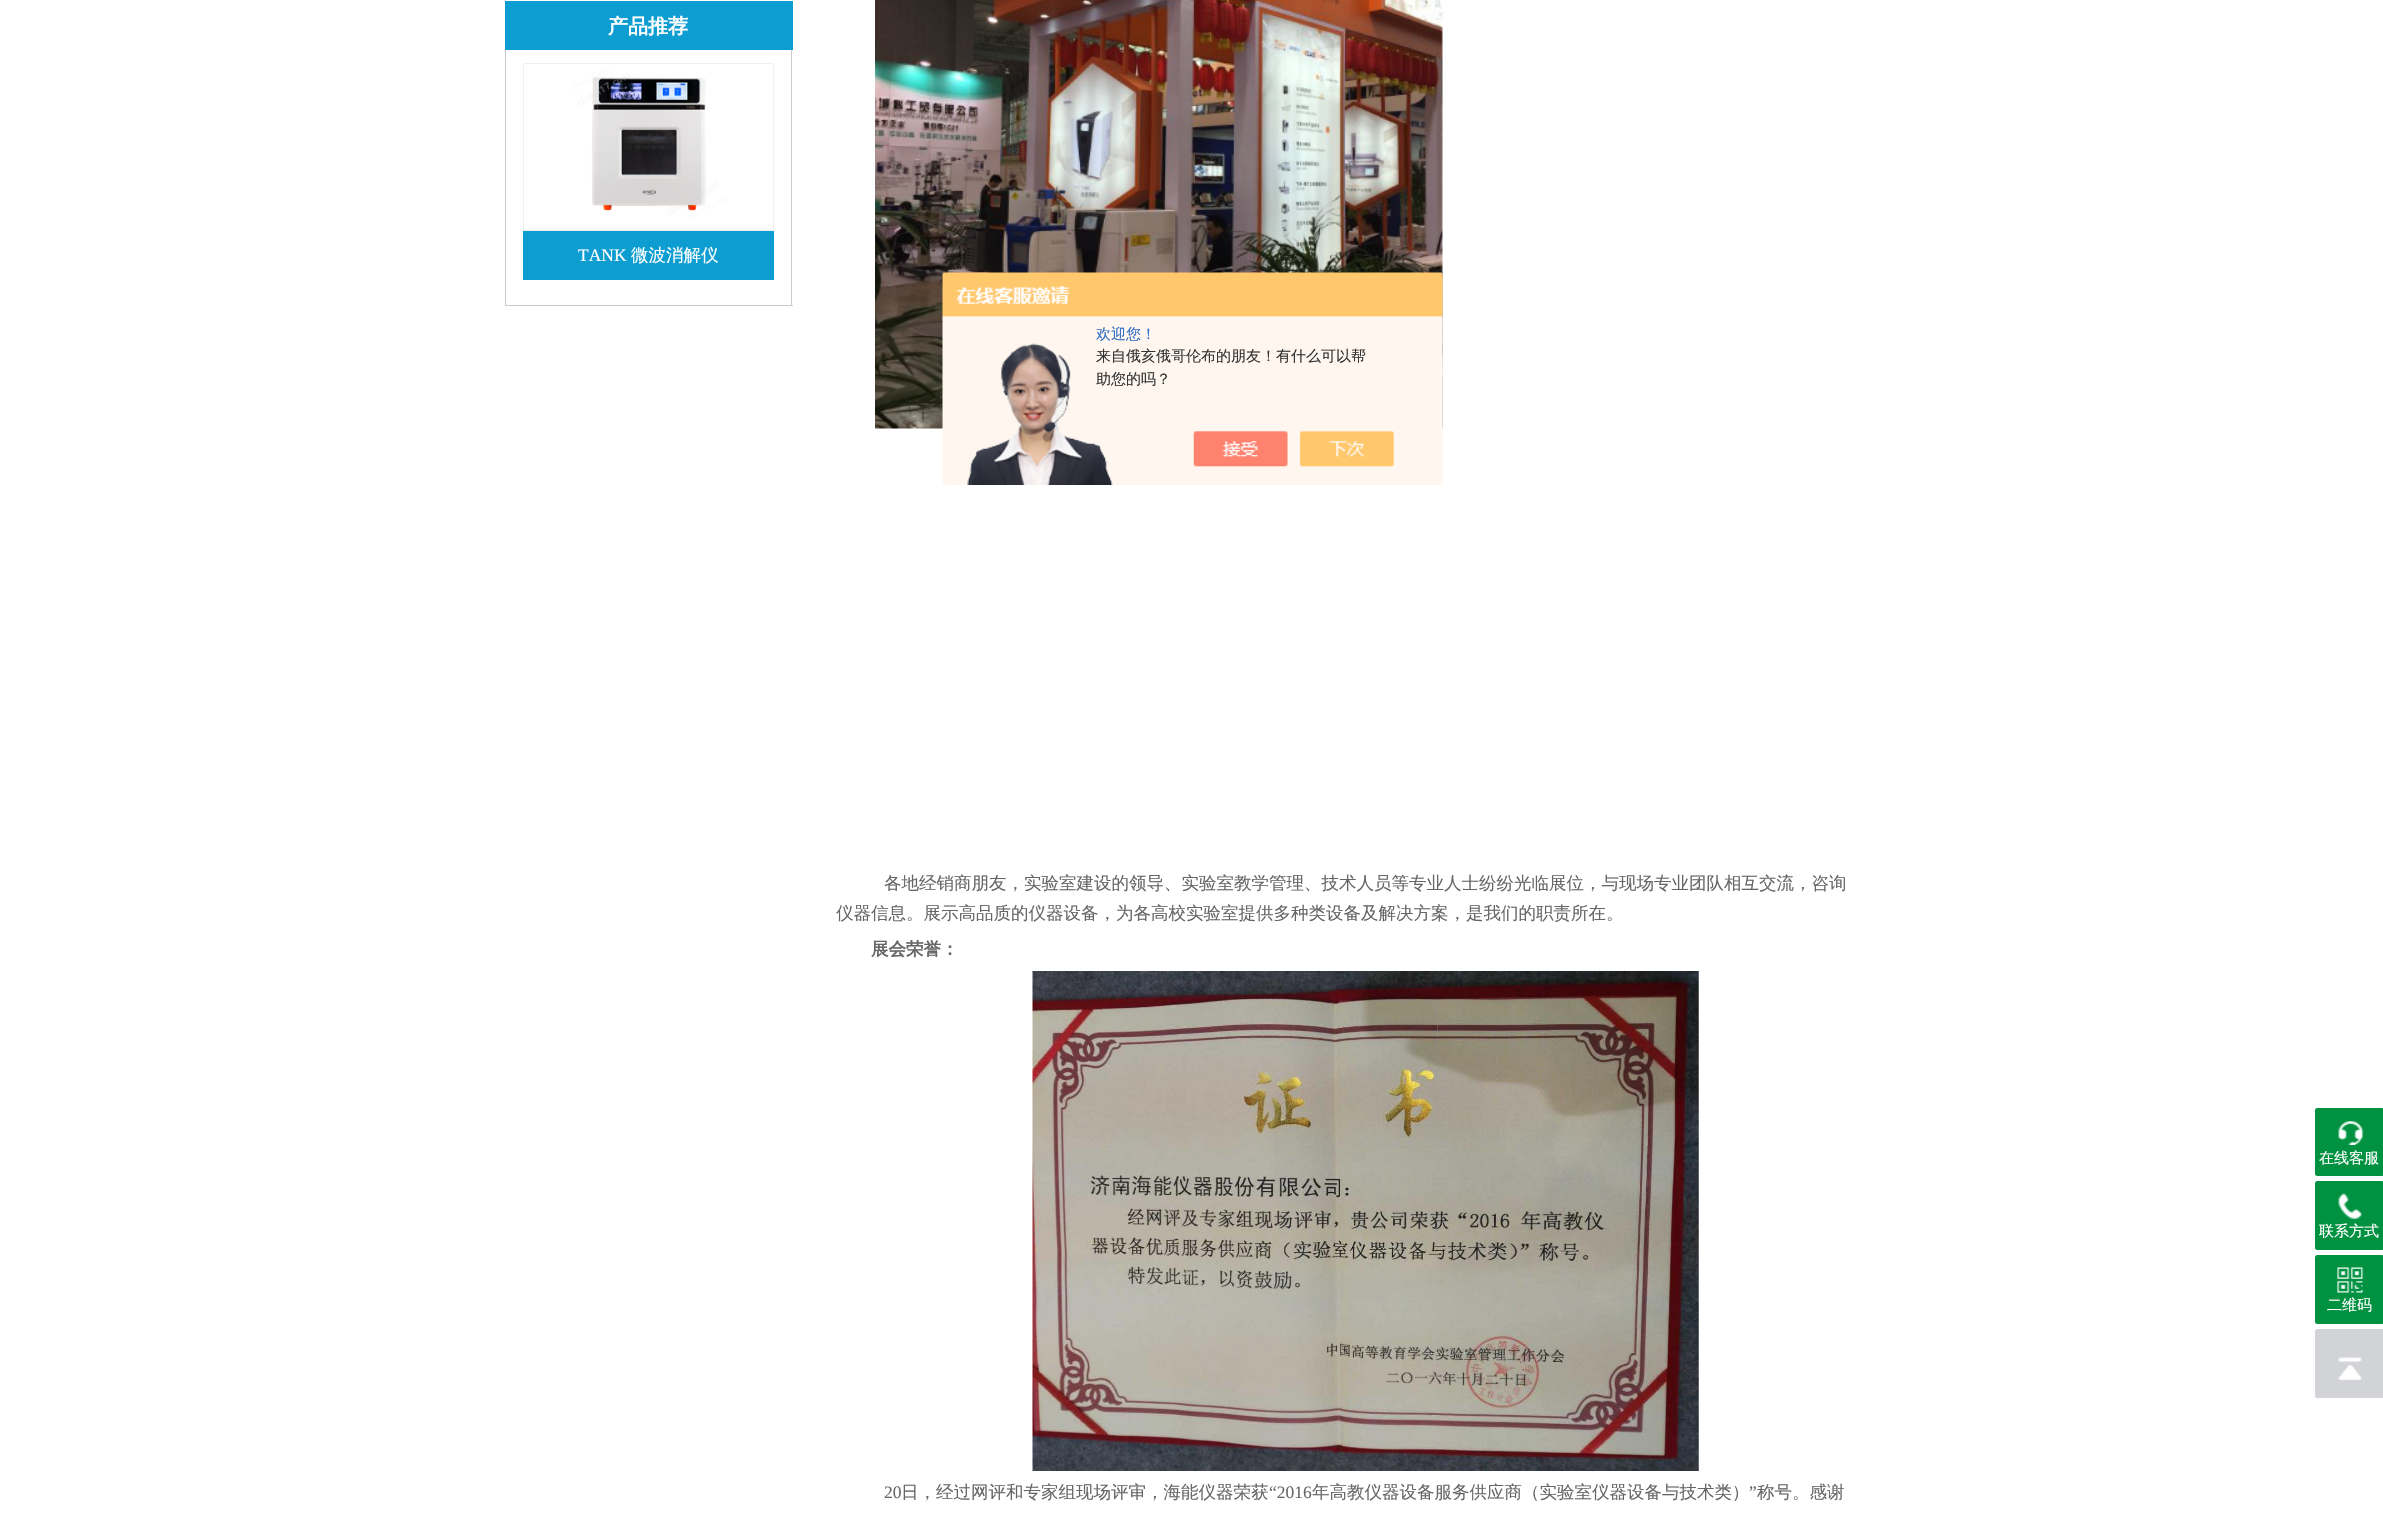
#include "include/core/SkBlurTypes.h"
#include "include/core/SkCanvas.h"
#include "include/core/SkData.h"
#include "include/core/SkFont.h"
#include "include/core/SkFontMgr.h"
#include "include/core/SkImage.h"
#include "include/core/SkMaskFilter.h"
#include "include/core/SkPaint.h"
#include "include/core/SkPathBuilder.h"
#include "include/core/SkTextBlob.h"
#include "include/effects/SkDashPathEffect.h"
#include "include/effects/SkGradientShader.h"
#include "include/utils/SkParsePath.h"

extern sk_sp<SkFontMgr> fontMgr;

void draw(SkCanvas* canvas) {
    SkPaint p;
    p.setAntiAlias(true);
    auto font = [&](const char* family, int weight, float size, bool italic = false) {
        SkFontStyle style(weight, SkFontStyle::kNormal_Width,
            italic ? SkFontStyle::kItalic_Slant : SkFontStyle::kUpright_Slant);
        SkFont result(fontMgr->matchFamilyStyle(family, style), size);
        result.setSubpixel(true);
        return result;
    };
    auto drawPhoto = [&](const char* path, float l, float t, float r, float b) {
        auto image = SkImages::DeferredFromEncodedData(SkData::MakeFromFileName(path));
        canvas->drawImageRect(image, SkRect::MakeLTRB(l, t, r, b), SkSamplingOptions());
    };
    canvas->clear(0xFFFFFFFF);
    p.setColor(0xFF0D9DD1);
    canvas->drawRect(SkRect::MakeLTRB(505, 1, 793, 50), p);
    auto font1 = font("WenQuanYi Zen Hei", 700, 20);
    p.setColor(0xFFFFFFFF);
    canvas->drawString("产品推荐", 608, 33, font1, p);
    {
        const struct { float l, t, r, b; SkColor color; } items[] = {
            {791, 50, 792, 306, 0xFFCCCCCC},
            {505, 305, 793, 306, 0xFFCCCCCC},
            {505, 50, 506, 306, 0xFFCCCCCC},
        };
        for (auto [l, t, r, b, color] : items) {
            p.setColor(color);
            canvas->drawRect(SkRect::MakeLTRB(l, t, r, b), p);
        }
    }
    p.setStyle(SkPaint::kStroke_Style);
    p.setStrokeWidth(1);
    p.setColor(0xFFF1F1F1);
    canvas->drawRect(SkRect::MakeLTRB(523.5f, 63.5f, 773.5f, 230.5f), p);
    drawPhoto("media/1.png", 574, 67, 726, 220);
    p.setStyle(SkPaint::kFill_Style);
    p.setColor(0xFF0D9DD1);
    canvas->drawRect(SkRect::MakeLTRB(523, 231, 774, 280), p);
    auto font2 = font("Liberation Serif", 400, 17.5f);
    p.setColor(0xFFFFFFFF);
    canvas->drawString("TANK", 578, 261, font2, p);
    auto font3 = font("WenQuanYi Zen Hei", 500, 17.5f);
    canvas->drawString("微波消解仪", 631, 261, font3, p);
    drawPhoto("media/2.png", 875, 0, 1443, 429);
    p.setColor(0xFF666666);
    canvas->drawString("各地经销商朋友，实验室建设的领导、实验室教学管理、技术人员等专业人士纷纷光临展位，与现场专业团队相互交流，咨询", 884, 889, font3, p);
    canvas->drawString("仪器信息。展示高品质的仪器设备，为各高校实验室提供多种类设备及解决方案，是我们的职责所在。", 836, 919, font3, p);
    auto font4 = font("WenQuanYi Zen Hei", 700, 17.5f);
    canvas->drawString("展会荣誉：", 871, 955, font4, p);
    drawPhoto("media/3.png", 1032, 971, 1699, 1471);
    canvas->drawString("20", 884, 1498, font2, p);
    canvas->drawString("日，经过网评和专家组现场评审，海能仪器荣获", 901, 1498, font3, p);
    canvas->drawString("“2016", 1269, 1498, font2, p);
    canvas->drawString("年高教仪器设备服务供应商（实验室仪器设备与技术类）", 1312, 1498, font3, p);
    canvas->drawString("”", 1749, 1498, font2, p);
    canvas->drawString("称号。感谢", 1757, 1498, font3, p);
    p.setColor(0xFF009240);
    canvas->drawRoundRect(SkRect::MakeLTRB(2315, 1108, 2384, 1176), 2.5f, 2.5f, p);
    drawPhoto("media/4.png", 2338, 1121, 2364, 1145);
    auto font5 = font("WenQuanYi Zen Hei", 500, 15);
    p.setColor(0xFFFFFFFF);
    canvas->drawString("在线客服", 2319, 1163, font5, p);
    p.setColor(0xFF009240);
    canvas->drawRoundRect(SkRect::MakeLTRB(2315, 1181, 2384, 1250), 2.5f, 2.5f, p);
    drawPhoto("media/5.png", 2338, 1193, 2363, 1219);
    p.setColor(0xFFFFFFFF);
    canvas->drawString("联系方式", 2319, 1236, font5, p);
    p.setColor(0xFF009240);
    canvas->drawRoundRect(SkRect::MakeLTRB(2315, 1255, 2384, 1324), 2.5f, 2.5f, p);
    drawPhoto("media/6.png", 2337, 1267, 2364, 1293);
    p.setColor(0xFFFFFFFF);
    canvas->drawString("二维码", 2327, 1310, font5, p);
    p.setColor(0xFFD2D3D6);
    canvas->drawRoundRect(SkRect::MakeLTRB(2315, 1329, 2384, 1398), 2.5f, 2.5f, p);
    drawPhoto("media/7.png", 2338, 1357, 2362, 1381);
    drawPhoto("media/8.png", 942, 272, 1443, 485);
    p.setColor(0xFF2E6EC6);
    canvas->drawString("欢迎您！", 1096, 339, font5, p);
    p.setColor(0xFF333333);
    canvas->drawString("来自俄亥俄哥伦布的朋友！有什么可以帮", 1096, 361, font5, p);
    canvas->drawString("助您的吗？", 1096, 384, font5, p);
}
